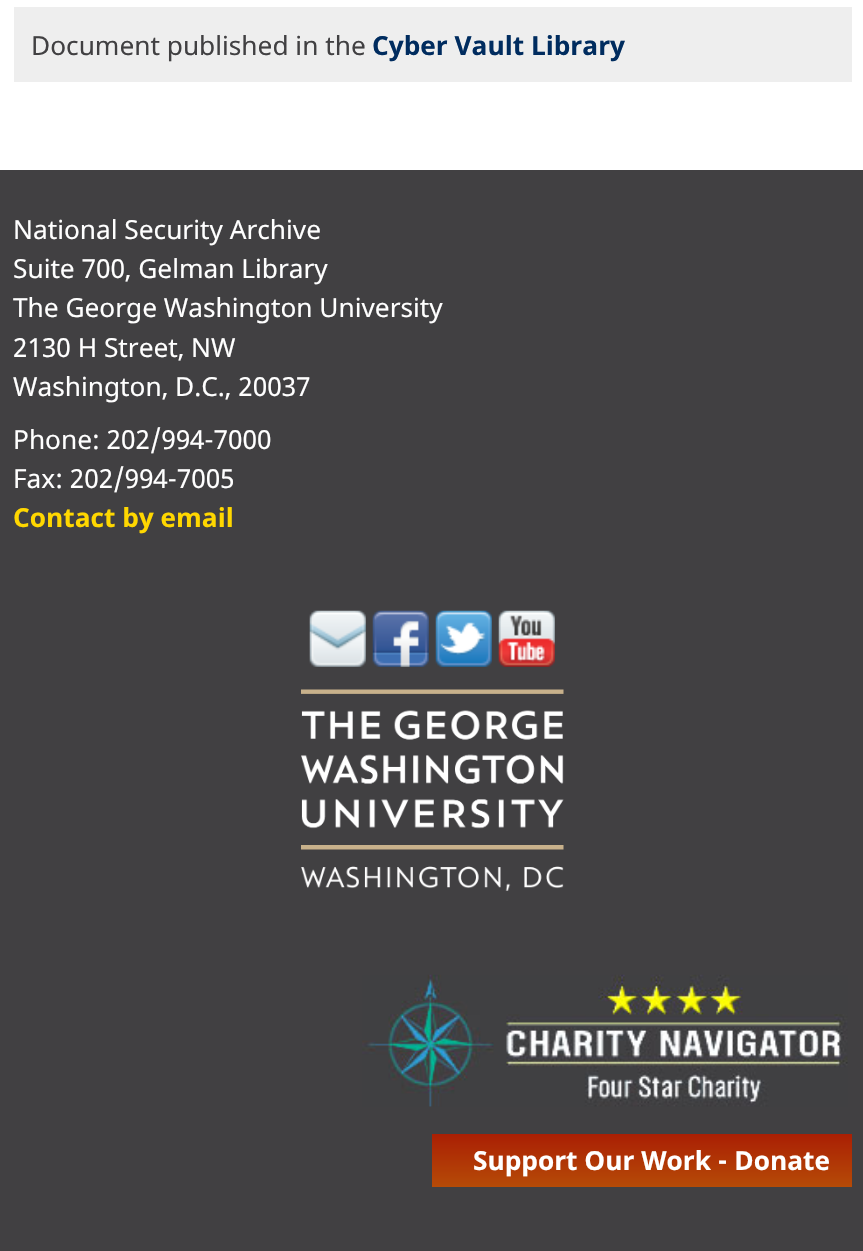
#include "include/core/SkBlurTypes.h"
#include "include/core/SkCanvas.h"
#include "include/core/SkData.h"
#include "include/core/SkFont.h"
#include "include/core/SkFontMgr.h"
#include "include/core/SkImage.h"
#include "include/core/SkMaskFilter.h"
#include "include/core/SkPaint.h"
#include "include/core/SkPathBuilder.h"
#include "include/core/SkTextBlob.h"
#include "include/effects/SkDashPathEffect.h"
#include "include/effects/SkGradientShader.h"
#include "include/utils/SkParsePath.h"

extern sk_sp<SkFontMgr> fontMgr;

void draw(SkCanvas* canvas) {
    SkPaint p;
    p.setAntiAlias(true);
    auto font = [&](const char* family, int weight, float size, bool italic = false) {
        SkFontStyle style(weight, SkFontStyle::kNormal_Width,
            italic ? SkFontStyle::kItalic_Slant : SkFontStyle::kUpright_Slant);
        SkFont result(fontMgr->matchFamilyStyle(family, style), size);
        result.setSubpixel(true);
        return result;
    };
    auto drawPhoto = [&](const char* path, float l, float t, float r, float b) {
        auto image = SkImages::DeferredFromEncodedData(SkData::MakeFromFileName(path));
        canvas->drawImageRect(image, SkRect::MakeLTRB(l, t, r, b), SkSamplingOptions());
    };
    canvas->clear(0xFFFFFFFF);
    p.setColor(0xFFEEEEEE);
    canvas->drawRect(SkRect::MakeLTRB(14, 7, 852, 82), p);
    auto font1 = font("Noto Sans", 400, 26.25f);
    p.setColor(0xFF414042);
    canvas->drawString("Document published in the", 31, 55, font1, p);
    auto font2 = font("Noto Sans", 700, 26.25f);
    p.setColor(0xFF002C5F);
    canvas->drawString("Cyber Vault Library", 372, 55, font2, p);
    p.setColor(0xFF414042);
    canvas->drawRect(SkRect::MakeLTRB(0, 170, 863, 1251), p);
    p.setColor(0xFFFFFFFF);
    {
        const struct { const char* s; float x, y; } items[] = {
            {"National Security Archive", 13, 239},
            {"Suite 700, Gelman Library", 13, 278},
            {"The George Washington University", 13, 317},
            {"2130 H Street, NW", 13, 357},
            {"Washington, D.C., 20037", 13, 396},
            {"Phone: 202/994-7000", 13, 449},
            {"Fax: 202/994-7005", 13, 488},
        };
        for (auto [s, x, y] : items) {
            canvas->drawString(s, x, y, font1, p);
        }
    }
    p.setColor(0xFFFFD700);
    canvas->drawString("Contact by email", 13, 527, font2, p);
    drawPhoto("media/1.png", 309, 610, 366, 667);
    drawPhoto("media/2.png", 372, 610, 429, 667);
    drawPhoto("media/3.png", 435, 610, 492, 667);
    drawPhoto("media/4.png", 498, 610, 555, 667);
    drawPhoto("media/5.png", 301, 689, 564, 891);
    drawPhoto("media/6.png", 362, 974, 848, 1107);
    {
        const SkColor colors[] = {0xFFAA1F04, 0xFFB64B07};
        const float stops[] = {0, 1};
        const SkPoint ends[] = {{642, 1134}, {642, 1187}};
        p.setShader(SkGradientShader::MakeLinear(ends, colors, stops, 2, SkTileMode::kClamp));
        p.setAlpha(255);
    }
    canvas->drawRect(SkRect::MakeLTRB(432, 1134, 852, 1187), p);
    p.setShader(nullptr);
    p.setColor(0xFFFFFFFF);
    canvas->drawString("Support Our Work - Donate", 473, 1170, font2, p);
}
